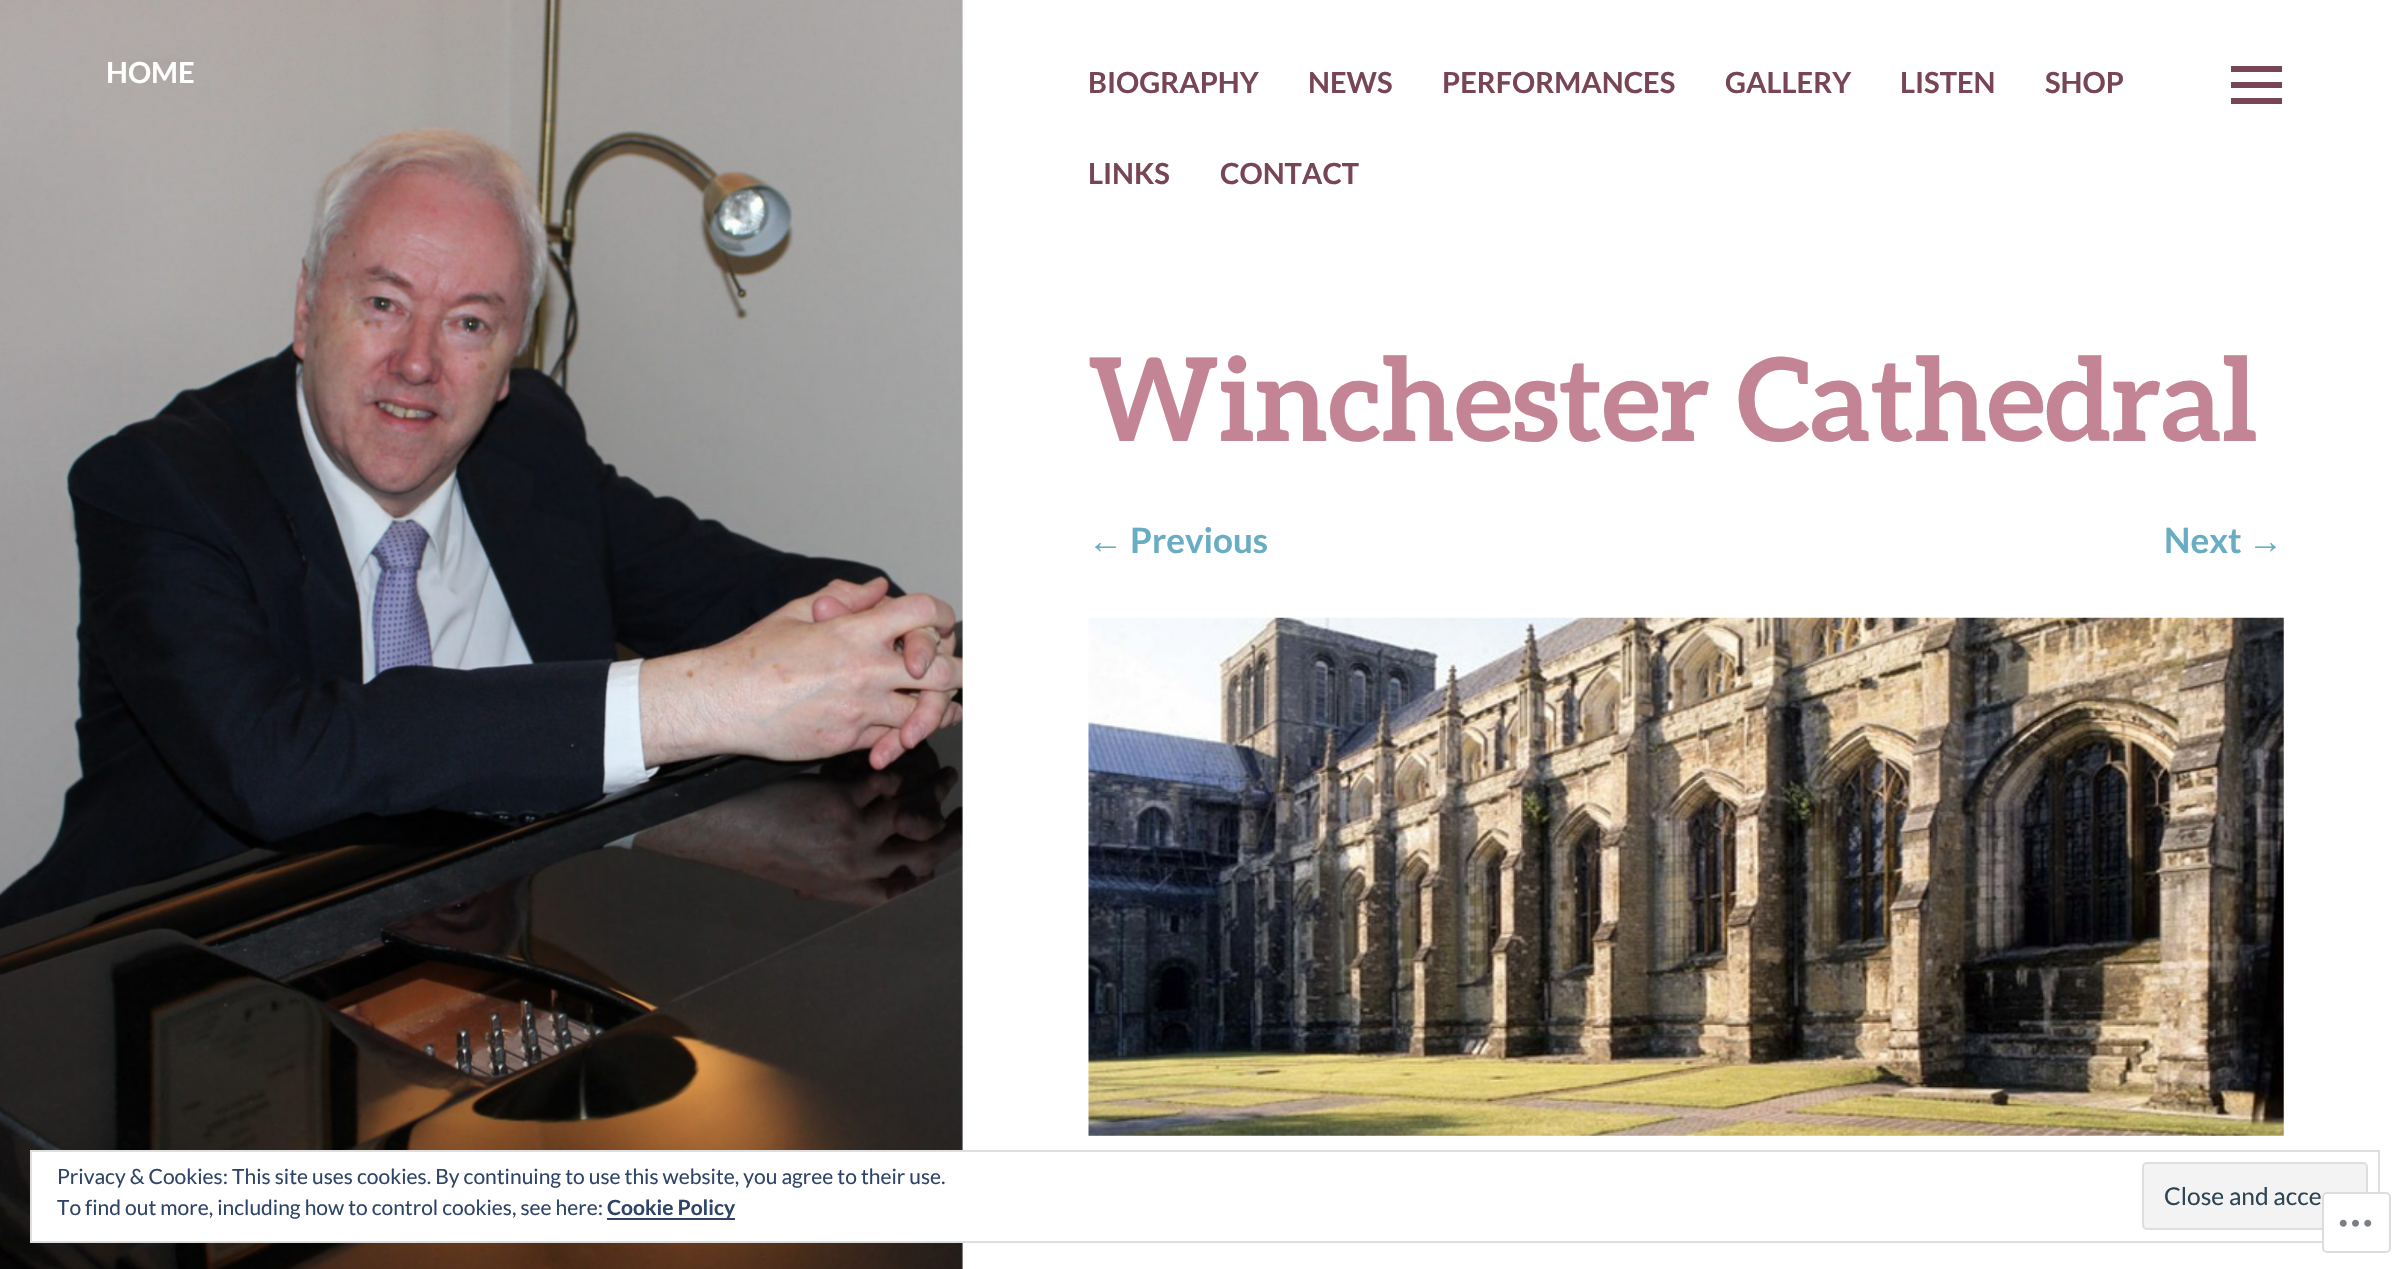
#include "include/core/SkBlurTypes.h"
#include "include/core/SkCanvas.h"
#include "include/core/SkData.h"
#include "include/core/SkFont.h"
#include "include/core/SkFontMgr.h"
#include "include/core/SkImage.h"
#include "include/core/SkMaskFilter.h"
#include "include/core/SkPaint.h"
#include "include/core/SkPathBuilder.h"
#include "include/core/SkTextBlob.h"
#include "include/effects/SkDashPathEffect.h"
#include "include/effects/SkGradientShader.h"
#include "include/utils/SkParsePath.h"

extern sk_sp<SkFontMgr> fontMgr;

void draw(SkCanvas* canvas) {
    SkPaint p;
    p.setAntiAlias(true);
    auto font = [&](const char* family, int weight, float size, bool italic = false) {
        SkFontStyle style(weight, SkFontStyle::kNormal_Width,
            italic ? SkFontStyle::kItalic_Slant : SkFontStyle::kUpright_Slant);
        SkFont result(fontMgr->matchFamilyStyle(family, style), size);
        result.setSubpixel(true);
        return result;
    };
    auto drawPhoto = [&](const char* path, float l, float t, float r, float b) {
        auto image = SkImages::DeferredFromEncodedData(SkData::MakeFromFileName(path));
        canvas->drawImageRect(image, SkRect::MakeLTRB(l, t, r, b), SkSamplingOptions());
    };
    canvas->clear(0xFFFFFFFF);
    p.setColor(0xFFF6F7F6);
    canvas->drawRect(SkRect::MakeLTRB(961, 0, 963, 1269), p);
    drawPhoto("media/1.png", 0, 0, 963, 1269);
    auto font1 = font("Lato", 700, 29);
    p.setColor(0xFFFFFFFF);
    canvas->drawString("HOME", 106, 83, font1, p);
    p.setColor(0xFF774553);
    {
        const struct { const char* s; float x, y; } items[] = {
            {"BIOGRAPHY", 1088, 93},
            {"NEWS", 1308, 93},
            {"PERFORMANCES", 1442, 93},
            {"GALLERY", 1725, 93},
            {"LISTEN", 1900, 93},
            {"SHOP", 2045, 93},
            {"LINKS", 1088, 184},
            {"CONTACT", 1220, 184},
        };
        for (auto [s, x, y] : items) {
            canvas->drawString(s, x, y, font1, p);
        }
    }
    canvas->drawPath(SkPathBuilder().moveTo(2231, 104).lineTo(2231, 98).lineTo(2282, 98).lineTo(2282, 104).close().moveTo(2231, 66).lineTo(2282, 66).lineTo(2282, 72).lineTo(2231, 72).close().moveTo(2231, 88).lineTo(2231, 82).lineTo(2282, 82).lineTo(2282, 88).close().detach(), p);
    auto font2 = font("Aleo", 700, 115.5f);
    p.setColor(0xFFC38596);
    canvas->drawString("Winchester Cathedral", 1088, 441, font2, p);
    auto font3 = font("Liberation Sans", 700, 35);
    p.setColor(0xFF68ADC3);
    canvas->drawString("←", 1088, 553, font3, p);
    auto font4 = font("Lato", 700, 35);
    canvas->drawString("Previous", 1130, 553, font4, p);
    canvas->drawString("Next", 2164, 553, font4, p);
    canvas->drawString("→", 2248, 553, font3, p);
    drawPhoto("media/2.png", 1088, 617, 2284, 1136);
    p.setColor(0xFFFFFFFF);
    canvas->drawRect(SkRect::MakeLTRB(32, 1152, 963, 1241), p);
    p.setStyle(SkPaint::kStroke_Style);
    p.setStrokeWidth(2);
    p.setColor(0xFFDEDEDE);
    canvas->drawRect(SkRect::MakeLTRB(31, 1151, 2379, 1242), p);
    auto font5 = font("Lato", 400, 21);
    p.setStyle(SkPaint::kFill_Style);
    p.setColor(0xFF2E4467);
    canvas->drawString("Privacy & Cookies: This site uses cookies. By continuing to use this website, you agree to their use.", 57, 1184, font5, p);
    p.setColor(0xFFF3F3F3);
    canvas->drawRoundRect(SkRect::MakeLTRB(2143, 1163, 2367, 1229), 4, 4, p);
    p.setStyle(SkPaint::kStroke_Style);
    p.setColor(0xFFDEDEDE);
    canvas->drawRoundRect(SkRect::MakeLTRB(2143, 1163, 2367, 1229), 4, 4, p);
    auto font6 = font("Lato", 400, 24.5f);
    p.setStyle(SkPaint::kFill_Style);
    p.setColor(0xFF2E4453);
    canvas->drawString("Close and acce", 2164, 1205, font6, p);
    p.setColor(0xFF2E4467);
    canvas->drawString("To find out more, including how to control cookies, see here:", 57, 1215, font5, p);
    canvas->drawRect(SkRect::MakeLTRB(607, 1218, 735, 1220), p);
    auto font7 = font("Lato", 700, 21);
    canvas->drawString("Cookie Policy", 607, 1215, font7, p);
    p.setColor(0xFAFFFFFF);
    canvas->drawRoundRect(SkRect::MakeLTRB(2322, 1192, 2391, 1253), 5, 5, p);
    p.setStyle(SkPaint::kStroke_Style);
    p.setColor(0xFADCDCDE);
    canvas->drawRoundRect(SkRect::MakeLTRB(2323, 1193, 2390, 1252), 4, 4, p);
    drawPhoto("media/3.png", 2339, 1219, 2372, 1227);
}
